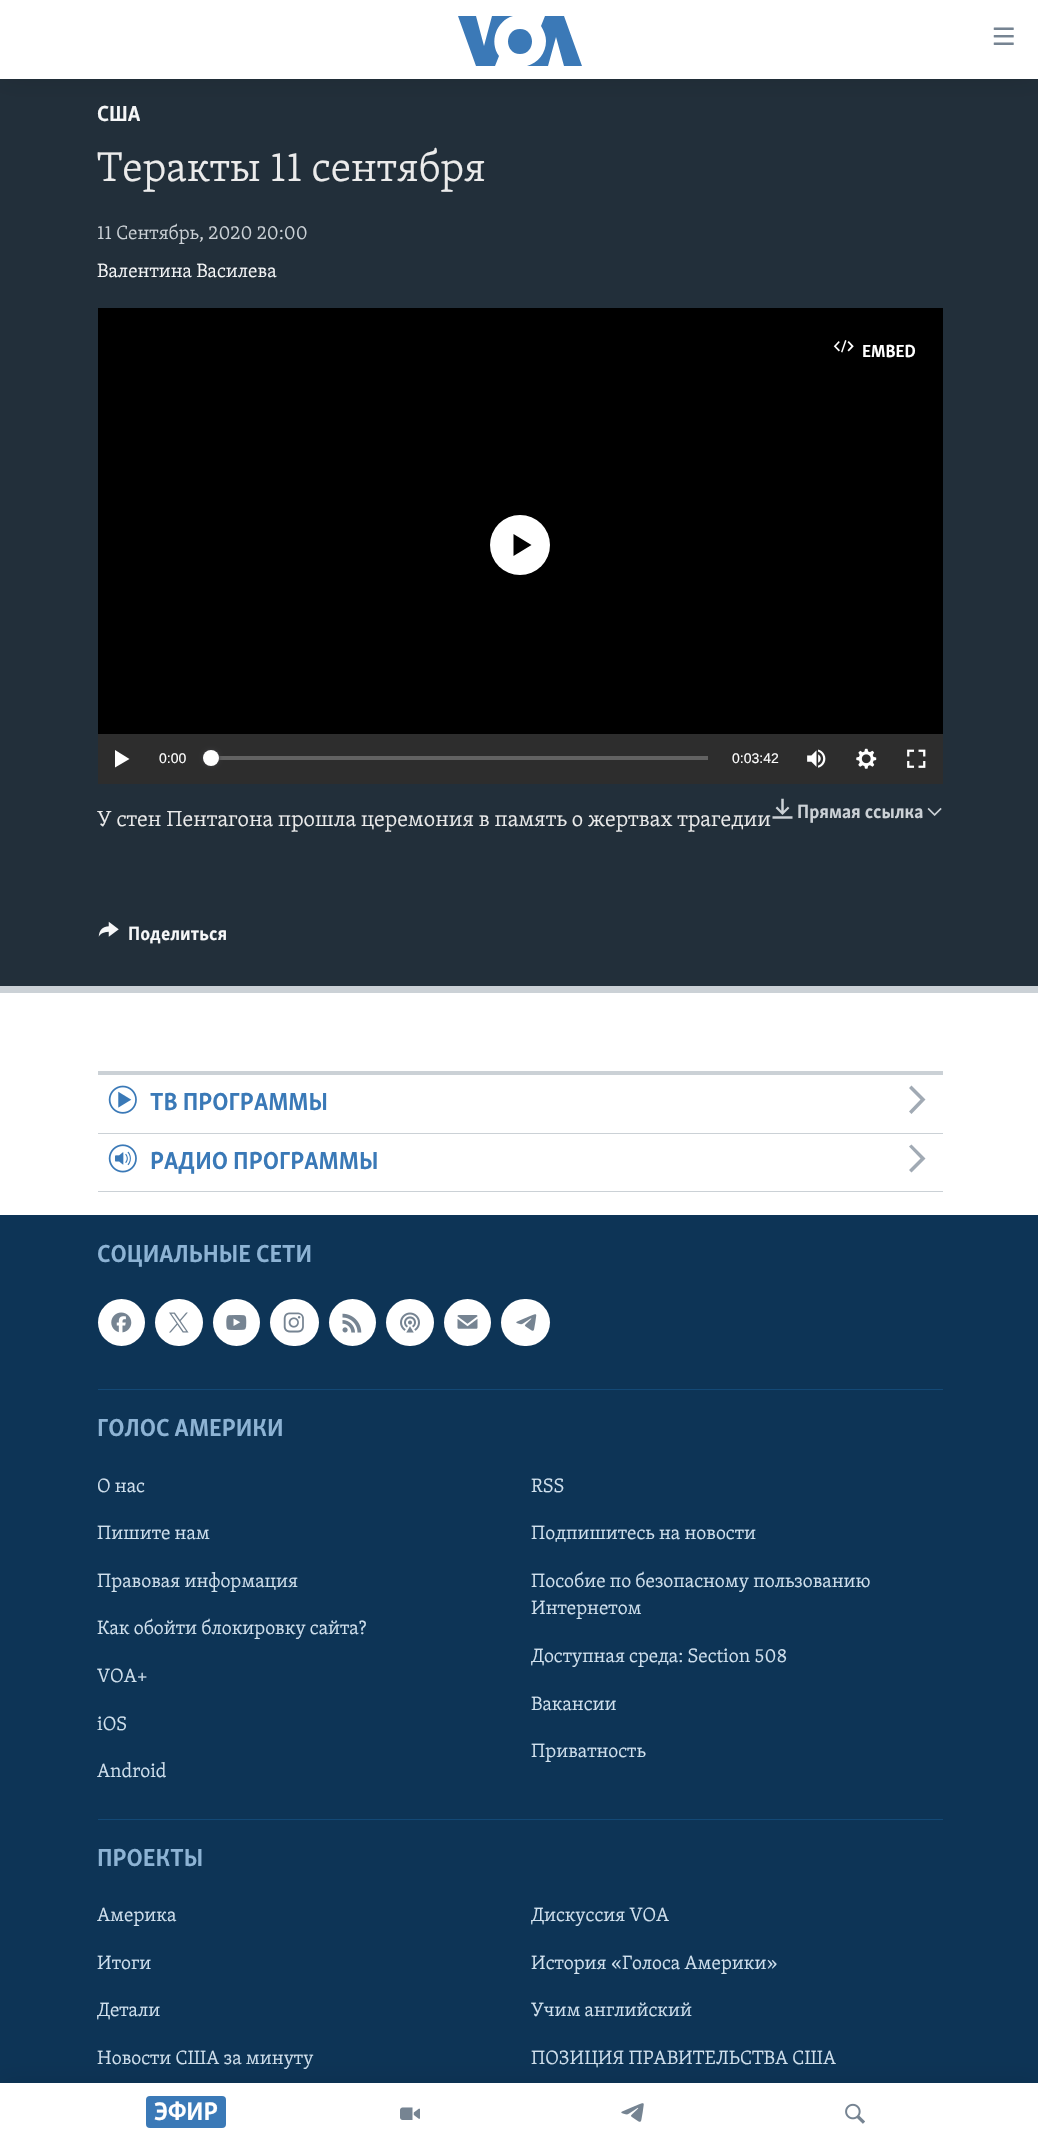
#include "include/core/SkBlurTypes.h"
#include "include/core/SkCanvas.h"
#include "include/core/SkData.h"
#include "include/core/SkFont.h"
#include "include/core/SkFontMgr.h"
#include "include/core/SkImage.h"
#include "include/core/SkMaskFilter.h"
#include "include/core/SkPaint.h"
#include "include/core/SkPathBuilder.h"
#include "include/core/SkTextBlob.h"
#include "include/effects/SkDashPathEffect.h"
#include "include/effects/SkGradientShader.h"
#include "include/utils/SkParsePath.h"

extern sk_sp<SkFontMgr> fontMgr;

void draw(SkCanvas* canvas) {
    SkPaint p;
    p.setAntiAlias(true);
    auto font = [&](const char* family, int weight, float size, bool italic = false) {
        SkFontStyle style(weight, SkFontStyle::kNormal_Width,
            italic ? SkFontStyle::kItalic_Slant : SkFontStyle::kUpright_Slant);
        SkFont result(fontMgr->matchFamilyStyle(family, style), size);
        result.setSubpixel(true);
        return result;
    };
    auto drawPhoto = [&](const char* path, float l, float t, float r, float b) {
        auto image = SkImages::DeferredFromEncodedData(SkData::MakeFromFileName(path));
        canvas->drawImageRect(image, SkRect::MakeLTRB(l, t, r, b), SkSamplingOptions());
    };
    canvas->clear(0xFFFFFFFF);
    p.setColor(0xFF222F3A);
    canvas->drawRect(SkRect::MakeLTRB(0, 79, 1038, 986), p);
    p.setColor(0xFFCBD1D6);
    canvas->drawRect(SkRect::MakeLTRB(0, 986, 1038, 993), p);
    auto font1 = font("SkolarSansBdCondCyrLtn", 700, 22.5f);
    p.setColor(0xFFF6F7F8);
    canvas->drawString("США", 97, 121, font1, p);
    auto font2 = font("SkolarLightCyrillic", 300, 42.75f);
    p.setColor(0xFFEBEBEB);
    canvas->drawString("Теракты 11 сентября", 97, 181, font2, p);
    auto font3 = font("SkolarLightCyrillic", 300, 19.7f);
    p.setColor(0xFFCBD1D6);
    canvas->drawString("11 Сентябрь, 2020 20:00", 97, 239, font3, p);
    p.setColor(0xFFF6F7F8);
    canvas->drawString("Валентина Василева", 97, 277, font3, p);
    p.setColor(0xFF000000);
    canvas->drawRect(SkRect::MakeLTRB(98, 308, 943, 734), p);
    drawPhoto("media/1.png", 833, 340, 854, 353);
    auto font4 = font("SkolarSansBdCondCyrLtn", 700, 18);
    p.setColor(0xFFFFFFFF);
    canvas->drawString("EMBED", 862, 357, font4, p);
    canvas->drawCircle(520, 545, 30, p);
    p.setColor(0xFF000000);
    canvas->drawPath(SkPathBuilder().moveTo(513.5f, 556).lineTo(531.5f, 545).lineTo(513.5f, 534).close().detach(), p);
    p.setColor(0xFF2D2D2D);
    canvas->drawRect(SkRect::MakeLTRB(98, 734, 943, 784), p);
    p.setColor(0xFFFFFFFF);
    canvas->drawPath(SkPathBuilder().moveTo(115, 767.5f).lineTo(129.5f, 759).lineTo(115, 750).close().detach(), p);
    auto font5 = font("Liberation Sans", 400, 14);
    canvas->drawString("0:00", 159, 763, font5, p);
    p.setColor(0xFF626262);
    canvas->drawRect(SkRect::MakeLTRB(211, 756, 708, 760), p);
    p.setColor(0xFF414144);
    p.setMaskFilter(SkMaskFilter::MakeBlur(kNormal_SkBlurStyle, 2));
    canvas->drawRoundRect(SkRect::MakeLTRB(203, 750, 219, 766), 8, 8, p);
    p.setMaskFilter(nullptr);
    p.setColor(0xFFFFFFFF);
    canvas->drawCircle(211, 758, 8, p);
    canvas->drawString("0:03:42", 732, 763, font5, p);
    drawPhoto("media/2.png", 807, 749, 826, 768);
    drawPhoto("media/3.png", 856, 748, 877, 769);
    drawPhoto("media/4.png", 907, 749, 926, 768);
    auto font6 = font("SkolarLightCyrillic", 300, 22.5f);
    p.setColor(0xFFEBEBEB);
    canvas->drawString("У стен Пентагона прошла церемония в память о жертвах трагедии", 97, 826, font6, p);
    drawPhoto("media/5.png", 772, 798, 793, 819);
    auto font7 = font("SkolarSansBdCondCyrLtn", 700, 19.7f);
    p.setColor(0xFFCBD1D6);
    canvas->drawString("Прямая ссылка", 797, 818, font7, p);
    drawPhoto("media/6.png", 927, 807, 942, 816);
    drawPhoto("media/7.png", 98, 921, 119, 937);
    p.setColor(0xFFF6F7F8);
    canvas->drawString("Поделиться", 128, 940, font7, p);
    p.setColor(0xFFCBD1D6);
    canvas->drawRect(SkRect::MakeLTRB(98, 1071, 943, 1075), p);
    canvas->drawRect(SkRect::MakeLTRB(98, 1133, 943, 1134), p);
    drawPhoto("media/8.png", 108, 1085, 137, 1114);
    auto font8 = font("SkolarSansBdCondCyrLtn", 700, 25.25f);
    p.setColor(0xFF3A79B7);
    canvas->drawString("ТВ ПРОГРАММЫ", 150, 1110, font8, p);
    p.setColor(0xFFA1AAB4);
    canvas->drawPath(SkPathBuilder().moveTo(911.5f, 1114).lineTo(925.5f, 1099.5f).lineTo(911.5f, 1085.5f).lineTo(909, 1088).lineTo(920.5f, 1099.5f).lineTo(909, 1111.5f).close().detach(), p);
    p.setColor(0xFFCBD1D6);
    canvas->drawRect(SkRect::MakeLTRB(98, 1191, 943, 1192), p);
    drawPhoto("media/9.png", 108, 1144, 137, 1173);
    p.setColor(0xFF3A79B7);
    canvas->drawString("РАДИО ПРОГРАММЫ", 150, 1169, font8, p);
    p.setColor(0xFFA1AAB4);
    canvas->drawPath(SkPathBuilder().moveTo(911.5f, 1172.5f).lineTo(925.5f, 1158.5f).lineTo(911.5f, 1144.5f).lineTo(909, 1146.5f).lineTo(920.5f, 1158.5f).lineTo(909, 1170).close().detach(), p);
    p.setColor(0xFF0D3456);
    canvas->drawRect(SkRect::MakeLTRB(0, 1215, 1038, 2083), p);
    p.setColor(0xFF8DB3D4);
    canvas->drawString("СОЦИАЛЬНЫЕ СЕТИ", 97, 1262, font8, p);
    p.setColor(0xFFFFFFFF);
    canvas->drawCircle(121.5f, 1322.5f, 23.5f, p);
    drawPhoto("media/10.png", 111, 1312, 132, 1333);
    canvas->drawRoundRect(SkRect::MakeLTRB(155, 1299, 203, 1346), 23.5f, 23.5f, p);
    drawPhoto("media/11.png", 169, 1312, 189, 1333);
    canvas->drawCircle(236.5f, 1322.5f, 23.5f, p);
    drawPhoto("media/12.png", 226, 1315, 247, 1330);
    canvas->drawRoundRect(SkRect::MakeLTRB(270, 1299, 319, 1346), 23.5f, 23.5f, p);
    drawPhoto("media/13.png", 283, 1312, 304, 1333);
    canvas->drawCircle(352.5f, 1322.5f, 23.5f, p);
    drawPhoto("media/14.png", 342, 1313, 362, 1333);
    canvas->drawRoundRect(SkRect::MakeLTRB(386, 1299, 434, 1346), 23.5f, 23.5f, p);
    drawPhoto("media/15.png", 400, 1312, 420, 1333);
    canvas->drawCircle(467.5f, 1322.5f, 23.5f, p);
    drawPhoto("media/16.png", 457, 1315, 478, 1329);
    canvas->drawRoundRect(SkRect::MakeLTRB(501, 1299, 550, 1346), 23.5f, 23.5f, p);
    drawPhoto("media/17.png", 516, 1314, 537, 1331);
    p.setColor(0xFF134976);
    canvas->drawRect(SkRect::MakeLTRB(98, 1389, 943, 1390), p);
    p.setColor(0xFF8DB3D4);
    canvas->drawString("ГОЛОС АМЕРИКИ", 97, 1436, font8, p);
    p.setColor(0xFFD1E1EE);
    {
        const struct { const char* s; float x, y; } items[] = {
            {"О нас", 97, 1492},
            {"RSS", 531, 1492},
            {"Пишите нам", 97, 1539},
            {"Подпишитесь на новости", 531, 1539},
            {"Правовая информация", 97, 1587},
            {"Пособие по безопасному пользованию", 531, 1587},
            {"Интернетом", 531, 1614},
            {"Как обойти блокировку сайта?", 97, 1634},
            {"Доступная среда: Section 508", 531, 1662},
            {"VOA+", 97, 1682},
            {"Вакансии", 531, 1710},
            {"iOS", 97, 1730},
            {"Приватность", 531, 1757},
            {"Android", 97, 1777},
        };
        for (auto [s, x, y] : items) {
            canvas->drawString(s, x, y, font3, p);
        }
    }
    p.setColor(0xFF134976);
    canvas->drawRect(SkRect::MakeLTRB(98, 1819, 943, 1820), p);
    p.setColor(0xFF8DB3D4);
    canvas->drawString("ПРОЕКТЫ", 97, 1866, font8, p);
    p.setColor(0xFFD1E1EE);
    {
        const struct { const char* s; float x, y; } items[] = {
            {"Америка", 97, 1921},
            {"Дискуссия VOA", 531, 1921},
            {"Итоги", 97, 1969},
            {"История «Голоса Америки»", 531, 1969},
            {"Детали", 97, 2016},
            {"Учим английский", 531, 2016},
            {"Новости США за минуту", 97, 2064},
            {"ПОЗИЦИЯ ПРАВИТЕЛЬСТВА США", 531, 2064},
        };
        for (auto [s, x, y] : items) {
            canvas->drawString(s, x, y, font3, p);
        }
    }
    p.setColor(0x1A000000);
    p.setMaskFilter(SkMaskFilter::MakeBlur(kNormal_SkBlurStyle, 12.5f));
    canvas->drawRect(SkRect::MakeLTRB(0, 0, 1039, 79), p);
    p.setMaskFilter(nullptr);
    p.setColor(0xFFFFFFFF);
    canvas->drawRect(SkRect::MakeLTRB(0, 0, 1038, 79), p);
    p.setColor(0xFF3B79B7);
    canvas->drawPath(SkPathBuilder().moveTo(499, 56).lineTo(495, 66).lineTo(476, 66).lineTo(458, 16).lineTo(476, 16).lineTo(484, 46).lineTo(492, 16).lineTo(513, 16).cubicTo(496, 21, 489, 42, 499, 56).close().moveTo(520, 29).cubicTo(504, 29, 504, 54, 520, 54).cubicTo(536, 54, 536, 29, 520, 29).close().moveTo(546, 41).cubicTo(546, 53, 538, 63, 527, 66).lineTo(548, 66).lineTo(556, 37).lineTo(564, 66).lineTo(582, 66).lineTo(564, 16).lineTo(545, 16).lineTo(541, 26).cubicTo(544, 31, 546, 36, 546, 41).close().detach(), p);
    drawPhoto("media/18.png", 993, 27, 1014, 45);
    p.setColor(0x1A000000);
    p.setMaskFilter(SkMaskFilter::MakeBlur(kNormal_SkBlurStyle, 12.5f));
    canvas->drawRect(SkRect::MakeLTRB(0, 2083, 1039, 2145), p);
    p.setMaskFilter(nullptr);
    p.setColor(0xFFFFFFFF);
    canvas->drawRect(SkRect::MakeLTRB(0, 2083, 1038, 2145), p);
    p.setColor(0xFF3A79B7);
    canvas->drawRoundRect(SkRect::MakeLTRB(146, 2096, 226, 2128), 4, 4, p);
    auto font9 = font("SkolarSansBdCondCyrLtn", 700, 26);
    p.setColor(0xFFFFFFFF);
    canvas->drawString("ЭФИР", 154, 2120, font9, p);
    drawPhoto("media/19.png", 400, 2107, 420, 2120);
    drawPhoto("media/20.png", 621, 2103, 644, 2122);
    drawPhoto("media/21.png", 845, 2103, 865, 2124);
}
